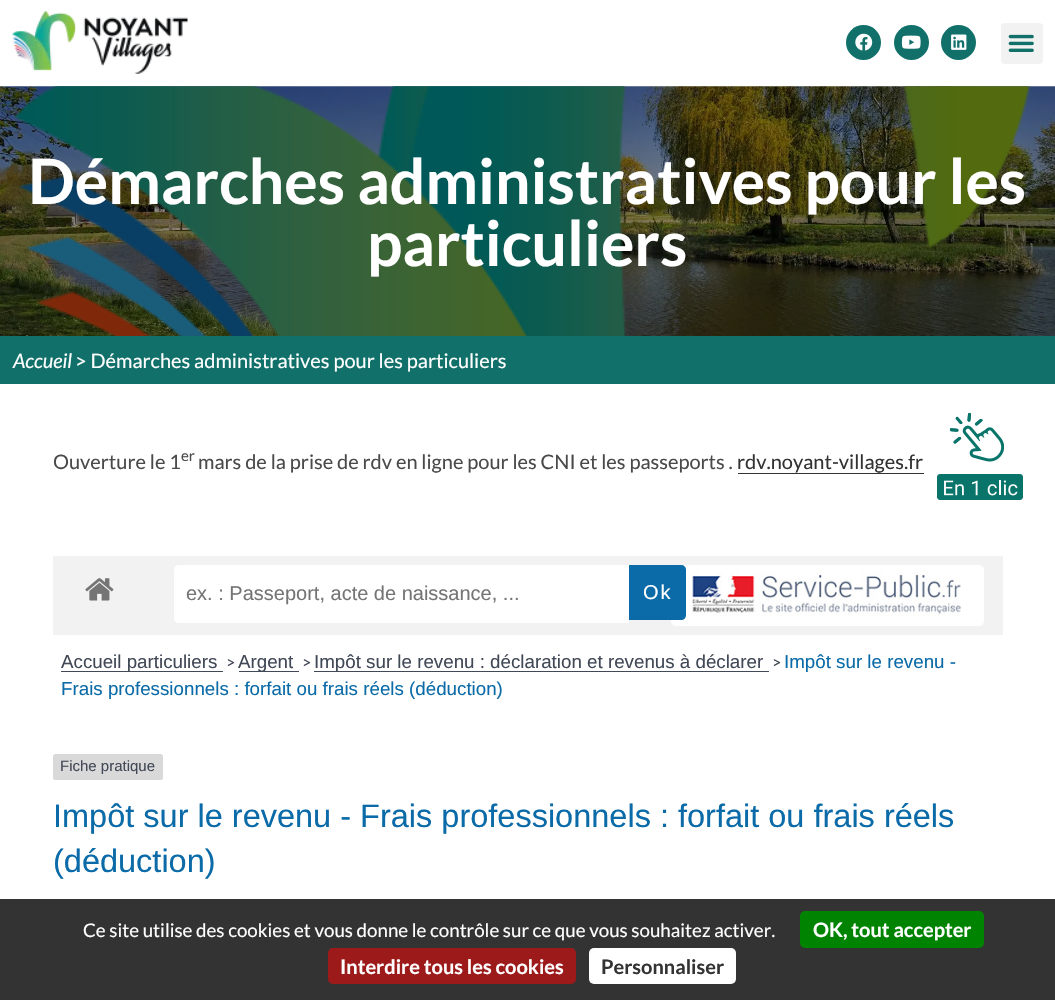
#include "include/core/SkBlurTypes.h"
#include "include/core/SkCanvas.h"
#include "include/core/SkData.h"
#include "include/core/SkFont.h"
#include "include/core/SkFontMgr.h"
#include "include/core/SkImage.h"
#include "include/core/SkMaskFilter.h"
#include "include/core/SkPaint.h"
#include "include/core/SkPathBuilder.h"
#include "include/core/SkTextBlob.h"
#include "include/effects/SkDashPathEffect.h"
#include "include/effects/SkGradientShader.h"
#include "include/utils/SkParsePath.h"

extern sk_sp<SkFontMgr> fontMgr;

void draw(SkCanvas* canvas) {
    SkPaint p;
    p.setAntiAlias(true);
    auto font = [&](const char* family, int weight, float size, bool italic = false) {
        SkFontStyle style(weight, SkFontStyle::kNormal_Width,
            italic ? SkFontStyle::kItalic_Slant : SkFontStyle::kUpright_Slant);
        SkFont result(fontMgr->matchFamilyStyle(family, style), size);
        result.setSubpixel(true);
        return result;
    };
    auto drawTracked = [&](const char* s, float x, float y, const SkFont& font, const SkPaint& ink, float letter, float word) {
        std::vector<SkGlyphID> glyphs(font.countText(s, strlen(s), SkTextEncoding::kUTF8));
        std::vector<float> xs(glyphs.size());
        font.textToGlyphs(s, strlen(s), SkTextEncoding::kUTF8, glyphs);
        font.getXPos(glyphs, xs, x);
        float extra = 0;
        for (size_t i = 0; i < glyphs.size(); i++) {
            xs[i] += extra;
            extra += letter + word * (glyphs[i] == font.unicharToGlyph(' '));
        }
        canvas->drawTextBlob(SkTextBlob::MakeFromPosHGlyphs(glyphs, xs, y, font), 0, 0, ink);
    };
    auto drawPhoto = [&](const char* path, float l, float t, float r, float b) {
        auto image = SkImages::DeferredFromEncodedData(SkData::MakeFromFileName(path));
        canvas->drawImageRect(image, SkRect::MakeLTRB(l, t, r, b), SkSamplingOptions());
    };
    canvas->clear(0xFFFFFFFF);
    drawPhoto("media/1.png", 12, 11, 188, 74);
    p.setColor(0xFF11706A);
    canvas->drawCircle(863.5f, 42.5f, 17.5f, p);
    drawPhoto("media/2.png", 855, 33, 873, 51);
    canvas->drawCircle(911.5f, 42.5f, 17.5f, p);
    drawPhoto("media/3.png", 901, 35, 921, 49);
    canvas->drawCircle(958.5f, 42.5f, 17.5f, p);
    drawPhoto("media/4.png", 951, 34, 967, 50);
    p.setColor(0xFFF2F2F2);
    canvas->drawRoundRect(SkRect::MakeLTRB(1001, 23, 1043, 64), 4, 4, p);
    drawPhoto("media/5.png", 1008, 34, 1034, 52);
    drawPhoto("media/6.png", 937, 413, 1023, 500);
    drawPhoto("media/7.png", 0, 86, 1055, 336);
    drawPhoto("media/8.png", 14, 86, 1031, 336);
    auto font1 = font("Lato", 700, 62.5f);
    p.setColor(0xFFFFFFFF);
    canvas->drawString("Démarches administratives pour les", 28, 204, font1, p);
    canvas->drawString("particuliers", 367, 266, font1, p);
    p.setColor(0xFF11706A);
    canvas->drawRect(SkRect::MakeLTRB(0, 336, 1055, 384), p);
    auto font2 = font("Lato", 400, 20, true);
    p.setColor(0xFFFFFFFF);
    canvas->drawString("Accueil", 13, 368, font2, p);
    auto font3 = font("Lato", 400, 20);
    canvas->drawString("> Démarches administratives pour les particuliers", 75, 368, font3, p);
    p.setColor(0xFF4A4A4A);
    canvas->drawString("Ouverture le 1", 53, 469, font3, p);
    auto font4 = font("Lato", 400, 15);
    canvas->drawString("er", 181, 461, font4, p);
    canvas->drawString("mars de la prise de rdv en ligne pour les CNI et les passeports .", 198, 469, font3, p);
    p.setColor(0xFF333333);
    canvas->drawString("rdv.noyant-villages.fr", 737, 469, font3, p);
    canvas->drawRect(SkRect::MakeLTRB(738, 473, 924, 474), p);
    p.setColor(0xFFF2F2F2);
    canvas->drawRect(SkRect::MakeLTRB(53, 556, 1003, 635), p);
    drawPhoto("media/9.png", 85, 578, 114, 601);
    p.setColor(0xFFFFFFFF);
    canvas->drawPath(SkPathBuilder().moveTo(179, 565).lineTo(629, 565).lineTo(629, 623).lineTo(179, 623).cubicTo(176, 623, 174, 621, 174, 618).lineTo(174, 570).cubicTo(174, 567, 176, 565, 179, 565).close().detach(), p);
    auto font5 = font("Liberation Sans", 400, 20);
    p.setColor(0xFF757575);
    canvas->drawString("ex. : Passeport, acte de naissance, ...", 186, 600, font5, p);
    p.setColor(0xFFFFFFFF);
    canvas->drawRoundRect(SkRect::MakeLTRB(671, 565, 984, 626), 5, 5, p);
    p.setColor(0xFF0B6BA8);
    canvas->drawPath(SkPathBuilder().moveTo(629, 565).lineTo(681, 565).cubicTo(684, 565, 686, 567, 686, 570).lineTo(686, 615).cubicTo(686, 618, 684, 620, 681, 620).lineTo(629, 620).close().detach(), p);
    p.setColor(0xFFFFFFFF);
    drawTracked("Ok", 643, 599, font5, p, 2, 0);
    drawPhoto("media/10.png", 692, 572, 961, 616);
    p.setColor(0xFF414856);
    canvas->drawRect(SkRect::MakeLTRB(61, 671, 223, 672), p);
    auto font6 = font("Liberation Sans", 400, 18.75f);
    canvas->drawString("Accueil particuliers", 61, 668, font6, p);
    auto font7 = font("Lato", 400, 16);
    canvas->drawString(">", 226, 668, font7, p);
    canvas->drawRect(SkRect::MakeLTRB(239, 671, 299, 672), p);
    canvas->drawString("Argent", 238, 668, font6, p);
    canvas->drawString(">", 302, 668, font7, p);
    canvas->drawRect(SkRect::MakeLTRB(314, 671, 769, 672), p);
    canvas->drawString("Impôt sur le revenu : déclaration et revenus à déclarer", 314, 668, font6, p);
    canvas->drawString(">", 772, 668, font7, p);
    p.setColor(0xFF0B6BA8);
    canvas->drawString("Impôt sur le revenu -", 784, 668, font6, p);
    canvas->drawString("Frais professionnels : forfait ou frais réels (déduction)", 61, 695, font6, p);
    p.setColor(0xFFD9D9D9);
    canvas->drawRoundRect(SkRect::MakeLTRB(53, 754, 163, 780), 2.5f, 2.5f, p);
    auto font8 = font("Liberation Sans", 400, 15);
    p.setColor(0xFF414856);
    canvas->drawString("Fiche pratique", 60, 771, font8, p);
    auto font9 = font("Liberation Sans", 400, 32.5f);
    p.setColor(0xFF0B6BA8);
    canvas->drawString("Impôt sur le revenu - Frais professionnels : forfait ou frais réels", 53, 827, font9, p);
    canvas->drawString("(déduction)", 53, 872, font9, p);
    p.setColor(0xFF333333);
    canvas->drawRect(SkRect::MakeLTRB(0, 899, 1055, 1000), p);
    auto font10 = font("Lato", 400, 18.75f);
    p.setColor(0xFFFFFFFF);
    canvas->drawString("Ce site utilise des cookies et vous donne le contrôle sur ce que vous souhaitez activer.", 83, 937, font10, p);
    p.setColor(0xFF008300);
    canvas->drawRoundRect(SkRect::MakeLTRB(800, 911, 984, 948), 5, 5, p);
    auto font11 = font("Lato", 700, 20);
    p.setColor(0xFFFFFFFF);
    canvas->drawString("OK, tout accepter", 813, 937, font11, p);
    p.setColor(0xFF9C1A1A);
    canvas->drawRoundRect(SkRect::MakeLTRB(328, 948, 576, 984), 5, 5, p);
    p.setColor(0xFFFFFFFF);
    canvas->drawString("Interdire tous les cookies", 340, 974, font11, p);
    canvas->drawRoundRect(SkRect::MakeLTRB(589, 948, 736, 984), 5, 5, p);
    p.setColor(0xFF333333);
    canvas->drawString("Personnaliser", 601, 974, font11, p);
}
